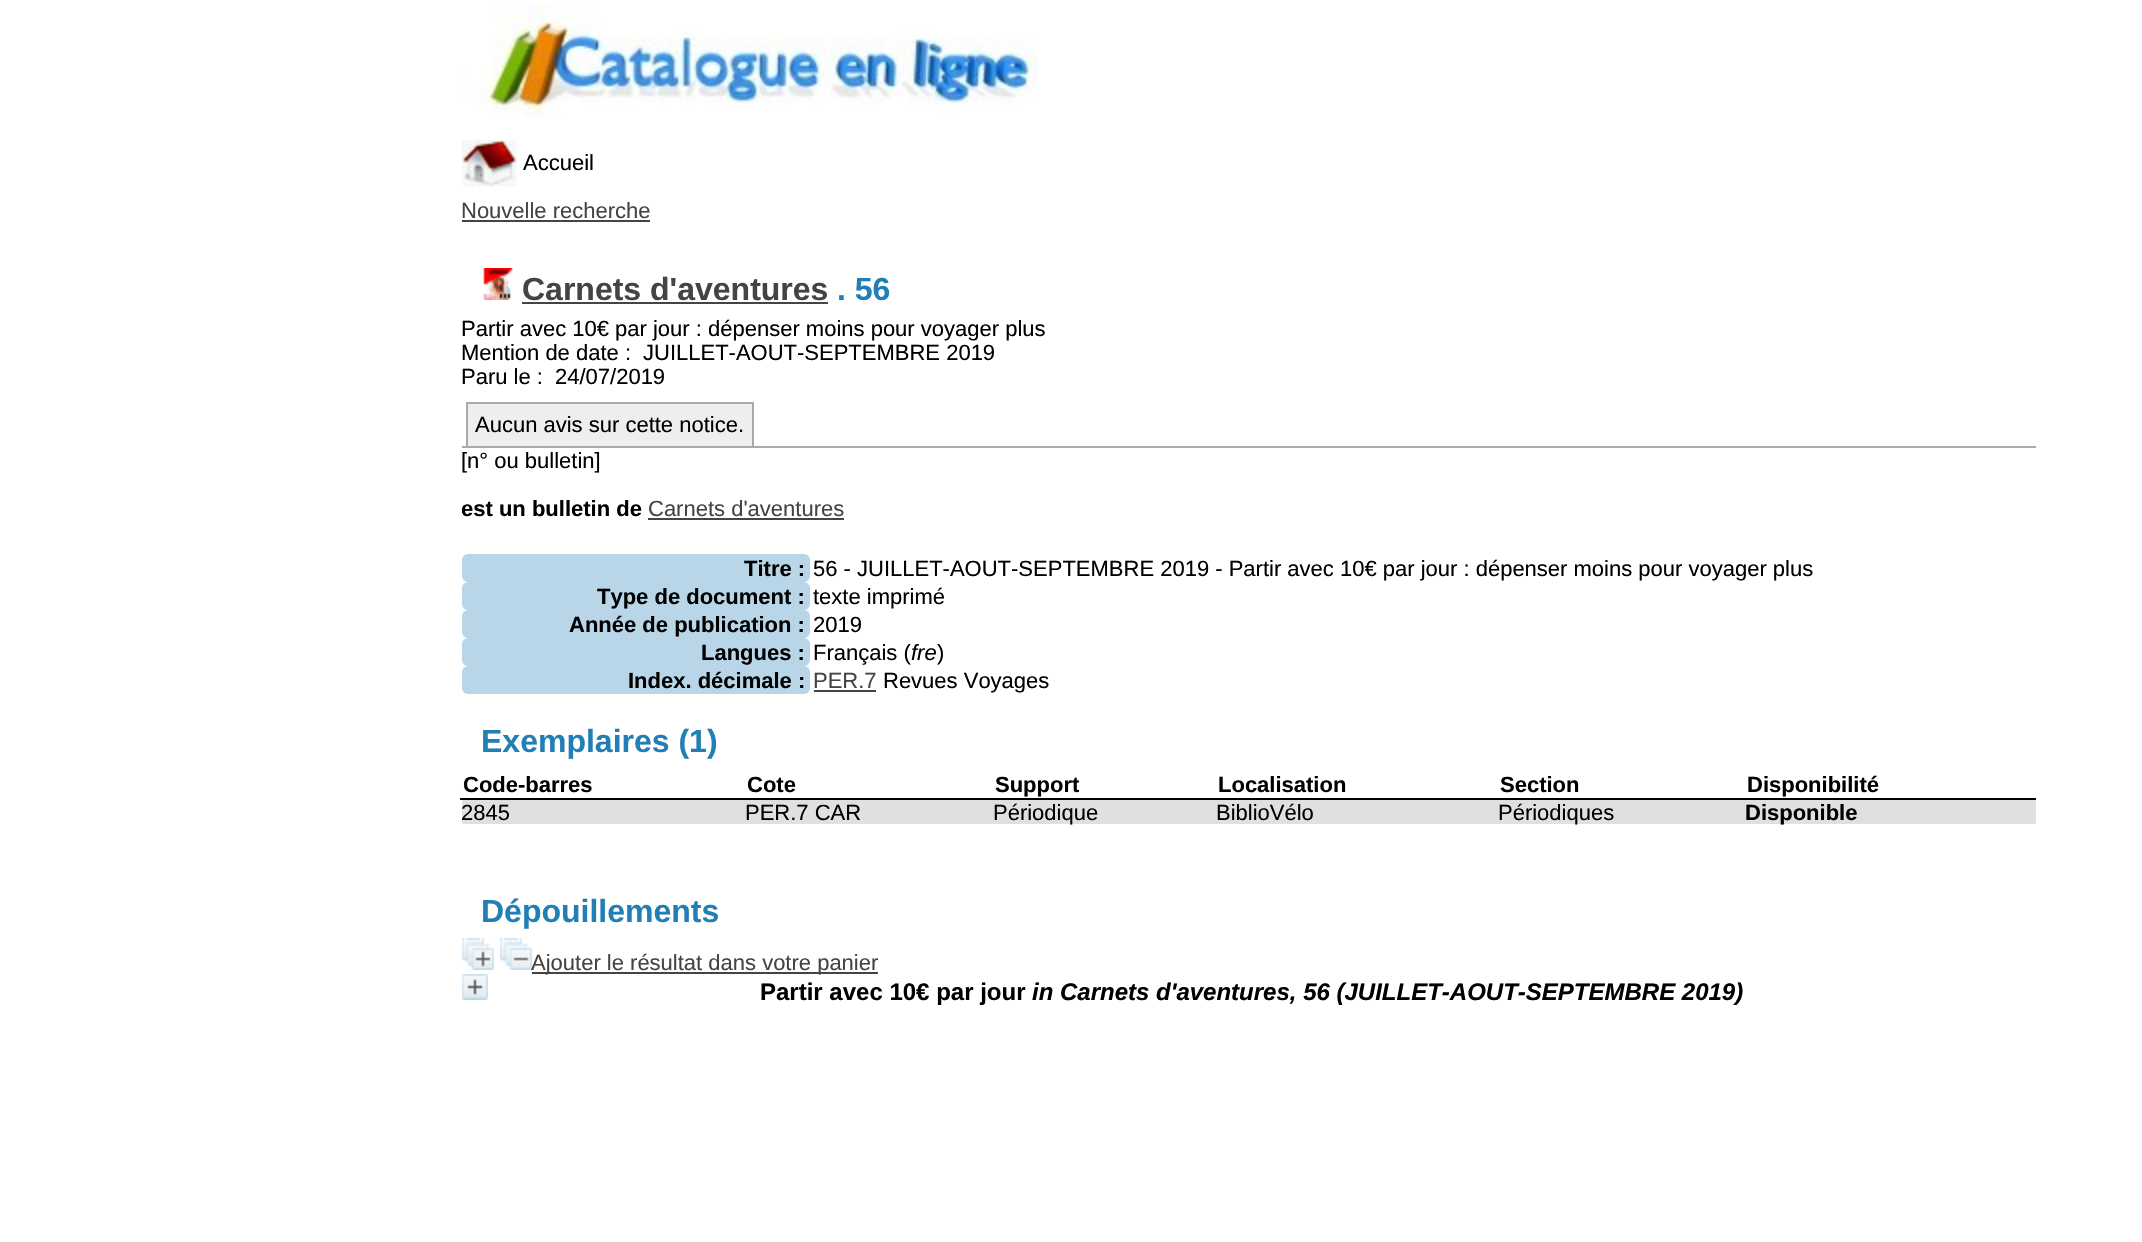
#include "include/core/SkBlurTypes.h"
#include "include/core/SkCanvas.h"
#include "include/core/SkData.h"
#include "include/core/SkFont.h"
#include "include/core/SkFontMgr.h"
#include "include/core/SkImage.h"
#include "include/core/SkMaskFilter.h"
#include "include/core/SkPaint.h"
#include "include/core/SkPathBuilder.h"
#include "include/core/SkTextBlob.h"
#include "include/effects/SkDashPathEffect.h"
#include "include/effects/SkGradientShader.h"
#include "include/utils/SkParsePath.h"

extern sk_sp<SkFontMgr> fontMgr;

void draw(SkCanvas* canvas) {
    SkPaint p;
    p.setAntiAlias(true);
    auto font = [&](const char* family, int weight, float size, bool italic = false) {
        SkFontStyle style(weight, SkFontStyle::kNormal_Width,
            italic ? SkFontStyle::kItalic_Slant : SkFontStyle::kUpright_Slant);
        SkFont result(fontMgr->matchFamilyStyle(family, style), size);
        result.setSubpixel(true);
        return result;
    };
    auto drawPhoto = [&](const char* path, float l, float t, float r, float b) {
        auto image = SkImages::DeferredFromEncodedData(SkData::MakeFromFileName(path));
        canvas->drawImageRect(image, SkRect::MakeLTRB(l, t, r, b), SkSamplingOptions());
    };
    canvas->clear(0xFFFFFFFF);
    drawPhoto("media/1.png", 462, 6, 1039, 118);
    drawPhoto("media/2.png", 462, 140, 518, 187);
    auto font1 = font("Liberation Sans", 400, 22);
    p.setColor(0xFF000000);
    canvas->drawString("Accueil", 523, 170, font1, p);
    p.setColor(0xFF444444);
    canvas->drawString("Nouvelle recherche", 461, 218, font1, p);
    canvas->drawRect(SkRect::MakeLTRB(462, 220, 650, 222), p);
    drawPhoto("media/3.png", 483, 268, 513, 300);
    auto font2 = font("Liberation Sans", 700, 32);
    canvas->drawString("Carnets d'aventures", 522, 300, font2, p);
    canvas->drawRect(SkRect::MakeLTRB(522, 302, 828, 304), p);
    p.setColor(0xFF217FB5);
    canvas->drawString(". 56", 837, 300, font2, p);
    p.setColor(0xFF000000);
    {
        const struct { const char* s; float x, y; } items[] = {
            {"Partir avec 10€ par jour : dépenser moins pour voyager plus", 461, 336},
            {"Mention de date :", 461, 360},
            {"JUILLET-AOUT-SEPTEMBRE 2019", 643, 360},
            {"Paru le :", 461, 384},
            {"24/07/2019", 555, 384},
        };
        for (auto [s, x, y] : items) {
            canvas->drawString(s, x, y, font1, p);
        }
    }
    p.setColor(0xFFAAAAAA);
    canvas->drawRect(SkRect::MakeLTRB(462, 446, 2036, 448), p);
    p.setColor(0xFFEEEEEE);
    canvas->drawRect(SkRect::MakeLTRB(467, 403, 753, 447), p);
    p.setStyle(SkPaint::kStroke_Style);
    p.setStrokeWidth(2);
    p.setColor(0xFFAAAAAA);
    canvas->drawRect(SkRect::MakeLTRB(467, 403, 753, 447), p);
    p.setStyle(SkPaint::kFill_Style);
    p.setColor(0xFF000000);
    canvas->drawString("Aucun avis sur cette notice.", 475, 432, font1, p);
    canvas->drawString("[n° ou bulletin]", 461, 468, font1, p);
    auto font3 = font("Liberation Sans", 700, 22);
    canvas->drawString("est un bulletin de", 461, 516, font3, p);
    p.setColor(0xFF444444);
    canvas->drawString("Carnets d'aventures", 648, 516, font1, p);
    canvas->drawRect(SkRect::MakeLTRB(648, 518, 844, 520), p);
    p.setColor(0xFFB8D6E8);
    canvas->drawRoundRect(SkRect::MakeLTRB(462, 554, 810, 582), 6, 6, p);
    p.setColor(0xFF000000);
    canvas->drawString("Titre :", 744, 576, font3, p);
    canvas->drawString("56 - JUILLET-AOUT-SEPTEMBRE 2019 - Partir avec 10€ par jour : dépenser moins pour voyager plus", 813, 576, font1, p);
    p.setColor(0xFFB8D6E8);
    canvas->drawRoundRect(SkRect::MakeLTRB(462, 582, 810, 610), 6, 6, p);
    p.setColor(0xFF000000);
    canvas->drawString("Type de document :", 597, 604, font3, p);
    canvas->drawString("texte imprimé", 813, 604, font1, p);
    p.setColor(0xFFB8D6E8);
    canvas->drawRoundRect(SkRect::MakeLTRB(462, 610, 810, 638), 6, 6, p);
    p.setColor(0xFF000000);
    canvas->drawString("Année de publication :", 569, 632, font3, p);
    canvas->drawString("2019", 813, 632, font1, p);
    p.setColor(0xFFB8D6E8);
    canvas->drawRoundRect(SkRect::MakeLTRB(462, 638, 810, 666), 6, 6, p);
    p.setColor(0xFF000000);
    canvas->drawString("Langues :", 701, 660, font3, p);
    canvas->drawString("Français (", 813, 660, font1, p);
    auto font4 = font("Liberation Sans", 400, 22, true);
    canvas->drawString("fre", 911, 660, font4, p);
    canvas->drawString(")", 937, 660, font1, p);
    p.setColor(0xFFB8D6E8);
    canvas->drawRoundRect(SkRect::MakeLTRB(462, 666, 810, 694), 6, 6, p);
    p.setColor(0xFF000000);
    canvas->drawString("Index. décimale :", 628, 688, font3, p);
    p.setColor(0xFF444444);
    canvas->drawString("PER.7", 813, 688, font1, p);
    canvas->drawRect(SkRect::MakeLTRB(814, 690, 876, 692), p);
    p.setColor(0xFF000000);
    canvas->drawString("Revues Voyages", 883, 688, font1, p);
    p.setColor(0xFF217FB5);
    canvas->drawString("Exemplaires (1)", 481, 752, font2, p);
    p.setColor(0xFF000000);
    {
        const struct { const char* s; float x, y; } items[] = {
            {"Code-barres", 463, 792},
            {"Cote", 747, 792},
            {"Support", 995, 792},
            {"Localisation", 1218, 792},
            {"Section", 1500, 792},
        };
        for (auto [s, x, y] : items) {
            canvas->drawString(s, x, y, font3, p);
        }
    }
    canvas->drawRect(SkRect::MakeLTRB(460, 798, 2036, 800), p);
    canvas->drawString("Disponibilité", 1747, 792, font3, p);
    p.setColor(0xFFE0E0E0);
    canvas->drawRect(SkRect::MakeLTRB(462, 800, 2036, 824), p);
    p.setColor(0xFF000000);
    {
        const struct { const char* s; float x, y; } items[] = {
            {"2845", 461, 820},
            {"PER.7 CAR", 745, 820},
            {"Périodique", 993, 820},
            {"BiblioVélo", 1216, 820},
            {"Périodiques", 1498, 820},
        };
        for (auto [s, x, y] : items) {
            canvas->drawString(s, x, y, font1, p);
        }
    }
    canvas->drawString("Disponible", 1745, 820, font3, p);
    p.setColor(0xFF217FB5);
    canvas->drawString("Dépouillements", 481, 922, font2, p);
    drawPhoto("media/4.png", 462, 938, 494, 970);
    drawPhoto("media/5.png", 500, 938, 532, 970);
    p.setColor(0xFF444444);
    canvas->drawRect(SkRect::MakeLTRB(532, 972, 878, 974), p);
    canvas->drawString("Ajouter le résultat dans votre panier", 531, 970, font1, p);
    drawPhoto("media/6.png", 462, 974, 488, 1000);
    auto font5 = font("Liberation Sans", 700, 24);
    p.setColor(0xFF000000);
    canvas->drawString("Partir avec 10€ par jour", 760, 1000, font5, p);
    auto font6 = font("Liberation Sans", 700, 24, true);
    canvas->drawString("in Carnets d'aventures, 56 (JUILLET-AOUT-SEPTEMBRE 2019)", 1032, 1000, font6, p);
}
